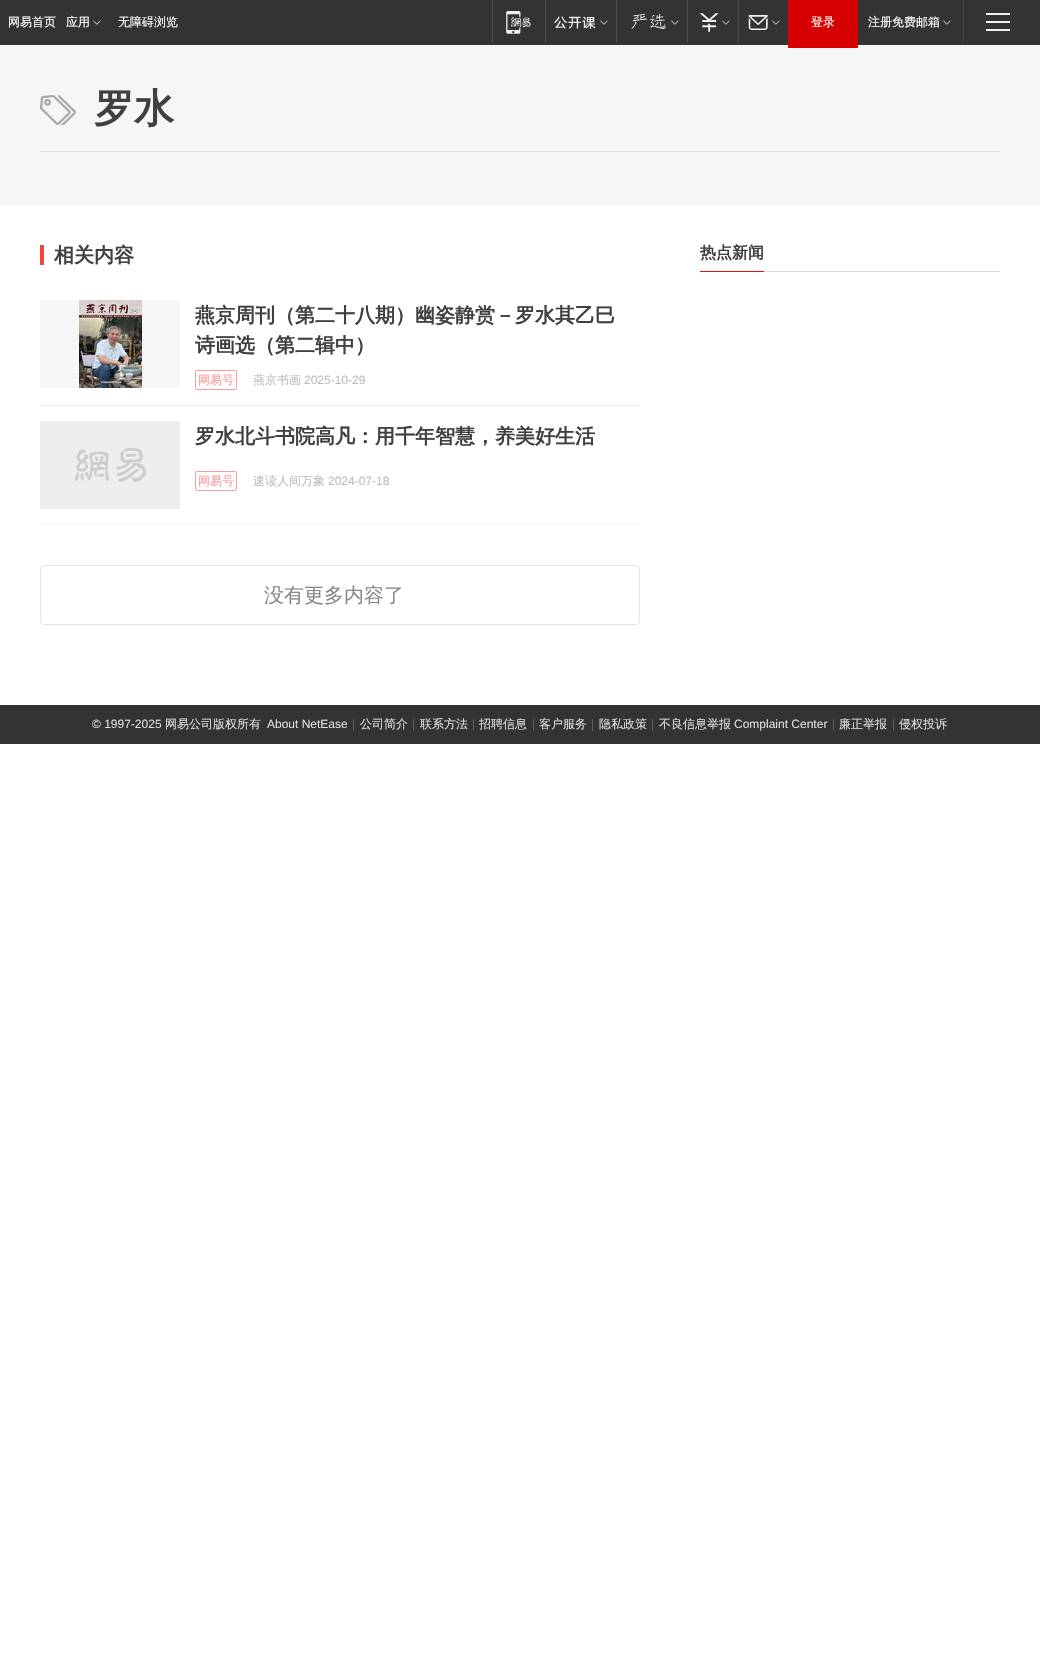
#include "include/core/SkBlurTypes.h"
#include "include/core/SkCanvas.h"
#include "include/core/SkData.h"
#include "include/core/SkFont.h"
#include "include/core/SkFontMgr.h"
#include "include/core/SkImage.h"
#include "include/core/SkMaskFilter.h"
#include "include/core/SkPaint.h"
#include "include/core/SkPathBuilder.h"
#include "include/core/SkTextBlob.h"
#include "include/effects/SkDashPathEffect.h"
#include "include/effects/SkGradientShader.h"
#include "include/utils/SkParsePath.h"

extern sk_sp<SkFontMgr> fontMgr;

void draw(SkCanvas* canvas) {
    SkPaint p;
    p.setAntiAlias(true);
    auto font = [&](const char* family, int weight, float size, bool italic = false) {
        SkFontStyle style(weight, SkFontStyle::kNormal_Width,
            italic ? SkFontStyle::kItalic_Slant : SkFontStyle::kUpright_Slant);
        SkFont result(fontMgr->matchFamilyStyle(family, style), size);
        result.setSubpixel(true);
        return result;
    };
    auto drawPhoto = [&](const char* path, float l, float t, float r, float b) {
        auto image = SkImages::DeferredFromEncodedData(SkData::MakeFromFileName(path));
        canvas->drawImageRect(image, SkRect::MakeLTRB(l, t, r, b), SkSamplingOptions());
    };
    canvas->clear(0xFFFFFFFF);
    p.setColor(0xFF333333);
    canvas->drawRect(SkRect::MakeLTRB(0, 0, 1040, 45), p);
    auto font1 = font("WenQuanYi Zen Hei", 500, 12);
    p.setColor(0xFFFFFFFF);
    canvas->drawString("网易首页", 8, 26, font1, p);
    canvas->drawString("应用", 66, 26, font1, p);
    drawPhoto("media/1.png", 93, 20, 101, 25);
    canvas->drawString("无障碍浏览", 118, 26, font1, p);
    p.setColor(0xFF4D4D4D);
    canvas->drawRect(SkRect::MakeLTRB(492, 0, 493, 43), p);
    drawPhoto("media/2.png", 506, 11, 531, 34);
    canvas->drawRect(SkRect::MakeLTRB(545, 0, 546, 43), p);
    drawPhoto("media/3.png", 554, 16, 596, 29);
    drawPhoto("media/1.png", 600, 20, 608, 25);
    canvas->drawRect(SkRect::MakeLTRB(616, 0, 617, 43), p);
    drawPhoto("media/4.png", 631, 13, 666, 29);
    drawPhoto("media/1.png", 671, 20, 679, 25);
    canvas->drawRect(SkRect::MakeLTRB(687, 0, 688, 43), p);
    drawPhoto("media/5.png", 699, 13, 719, 32);
    drawPhoto("media/1.png", 722, 20, 730, 25);
    canvas->drawRect(SkRect::MakeLTRB(738, 0, 739, 43), p);
    drawPhoto("media/6.png", 748, 15, 768, 30);
    drawPhoto("media/1.png", 772, 20, 780, 25);
    p.setColor(0xFFF6F6F6);
    canvas->drawRect(SkRect::MakeLTRB(0, 45, 1040, 205), p);
    p.setColor(0xFFD60000);
    canvas->drawRect(SkRect::MakeLTRB(788, 0, 858, 48), p);
    p.setColor(0xFFFFFFFF);
    canvas->drawString("登录", 811, 26, font1, p);
    canvas->drawString("注册免费邮箱", 868, 26, font1, p);
    drawPhoto("media/1.png", 943, 20, 951, 25);
    {
        const struct { float l, t, r, b; SkColor color; } items[] = {
            {963, 0, 964, 43, 0xFF444444},
            {986, 13, 1010, 15, 0xFFEFEFEF},
            {986, 21, 1010, 23, 0xFFEFEFEF},
            {986, 29, 1010, 31, 0xFFEFEFEF},
        };
        for (auto [l, t, r, b, color] : items) {
            p.setColor(color);
            canvas->drawRect(SkRect::MakeLTRB(l, t, r, b), p);
        }
    }
    drawPhoto("media/7.png", 40, 95, 76, 125);
    p.setColor(0xFFDDDDDD);
    canvas->drawRect(SkRect::MakeLTRB(40, 151, 1000, 152), p);
    auto font2 = font("WenQuanYi Zen Hei", 700, 40);
    p.setColor(0xFF404040);
    canvas->drawString("罗水", 94, 122, font2, p);
    p.setColor(0xFFF34540);
    canvas->drawRect(SkRect::MakeLTRB(40, 245, 44, 265), p);
    auto font3 = font("WenQuanYi Zen Hei", 700, 20);
    p.setColor(0xFF404040);
    canvas->drawString("相关内容", 54, 262, font3, p);
    p.setColor(0xFFF0F0F0);
    canvas->drawRect(SkRect::MakeLTRB(40, 405, 640, 406), p);
    p.setColor(0xFFF6F6F6);
    canvas->drawRect(SkRect::MakeLTRB(40, 300, 180, 388), p);
    drawPhoto("media/8.png", 79, 300, 142, 388);
    p.setColor(0xFF404040);
    canvas->drawString("燕京周刊（第二十八期）幽姿静赏－罗水其乙巳", 195, 322, font3, p);
    canvas->drawString("诗画选（第二辑中）", 195, 352, font3, p);
    p.setStyle(SkPaint::kStroke_Style);
    p.setStrokeWidth(1);
    p.setColor(0xFFFF9999);
    canvas->drawRoundRect(SkRect::MakeLTRB(195.5f, 370.5f, 236.5f, 389.5f), 1.5f, 1.5f, p);
    p.setStyle(SkPaint::kFill_Style);
    canvas->drawString("网易号", 198, 384, font1, p);
    p.setColor(0xFFBBBBBB);
    canvas->drawString("燕京书画", 253, 384, font1, p);
    auto font4 = font("Liberation Sans", 400, 12);
    canvas->drawString("2025-10-29", 304, 384, font4, p);
    p.setColor(0xFFF0F0F0);
    canvas->drawRect(SkRect::MakeLTRB(40, 524, 640, 525), p);
    drawPhoto("media/9.png", 40, 421, 180, 509);
    p.setColor(0xFF404040);
    canvas->drawString("罗水北斗书院高凡：用千年智慧，养美好生活", 195, 443, font3, p);
    p.setStyle(SkPaint::kStroke_Style);
    p.setColor(0xFFFF9999);
    canvas->drawRoundRect(SkRect::MakeLTRB(195.5f, 471.5f, 236.5f, 490.5f), 1.5f, 1.5f, p);
    p.setStyle(SkPaint::kFill_Style);
    canvas->drawString("网易号", 198, 485, font1, p);
    p.setColor(0xFFBBBBBB);
    canvas->drawString("速读人间万象", 253, 485, font1, p);
    canvas->drawString("2024-07-18", 328, 485, font4, p);
    p.setStyle(SkPaint::kStroke_Style);
    p.setColor(0xFFE5E5E5);
    canvas->drawRoundRect(SkRect::MakeLTRB(40.5f, 565.5f, 639.5f, 624.5f), 3.5f, 3.5f, p);
    auto font5 = font("WenQuanYi Zen Hei", 500, 20);
    p.setStyle(SkPaint::kFill_Style);
    p.setColor(0xFF888888);
    canvas->drawString("没有更多内容了", 264, 602, font5, p);
    p.setColor(0xFFDDDDDD);
    canvas->drawRect(SkRect::MakeLTRB(764, 271, 1000, 272), p);
    auto font6 = font("WenQuanYi Zen Hei", 700, 16);
    p.setColor(0xFF404040);
    canvas->drawString("热点新闻", 700, 258, font6, p);
    p.setColor(0xFFDB1011);
    canvas->drawRect(SkRect::MakeLTRB(700, 271, 764, 272), p);
    p.setColor(0xFF333333);
    canvas->drawRect(SkRect::MakeLTRB(0, 705, 1040, 744), p);
    p.setColor(0xFFDDDDDD);
    canvas->drawString("© 1997-2025", 92, 728, font4, p);
    canvas->drawString("网易公司版权所有", 165, 728, font1, p);
    canvas->drawString("About NetEase", 267, 728, font4, p);
    p.setColor(0xFF616161);
    canvas->drawString("|", 352, 728, font4, p);
    p.setColor(0xFFDDDDDD);
    canvas->drawString("公司简介", 360, 728, font1, p);
    p.setColor(0xFF616161);
    canvas->drawString("|", 412, 728, font4, p);
    p.setColor(0xFFDDDDDD);
    canvas->drawString("联系方法", 420, 728, font1, p);
    p.setColor(0xFF616161);
    canvas->drawString("|", 472, 728, font4, p);
    p.setColor(0xFFDDDDDD);
    canvas->drawString("招聘信息", 479, 728, font1, p);
    p.setColor(0xFF616161);
    canvas->drawString("|", 532, 728, font4, p);
    p.setColor(0xFFDDDDDD);
    canvas->drawString("客户服务", 539, 728, font1, p);
    p.setColor(0xFF616161);
    canvas->drawString("|", 591, 728, font4, p);
    p.setColor(0xFFDDDDDD);
    canvas->drawString("隐私政策", 599, 728, font1, p);
    p.setColor(0xFF616161);
    canvas->drawString("|", 651, 728, font4, p);
    p.setColor(0xFFDDDDDD);
    canvas->drawString("不良信息举报", 659, 728, font1, p);
    canvas->drawString("Complaint Center", 734, 728, font4, p);
    p.setColor(0xFF616161);
    canvas->drawString("|", 832, 728, font4, p);
    p.setColor(0xFFDDDDDD);
    canvas->drawString("廉正举报", 839, 728, font1, p);
    p.setColor(0xFF616161);
    canvas->drawString("|", 892, 728, font4, p);
    p.setColor(0xFFDDDDDD);
    canvas->drawString("侵权投诉", 899, 728, font1, p);
}
